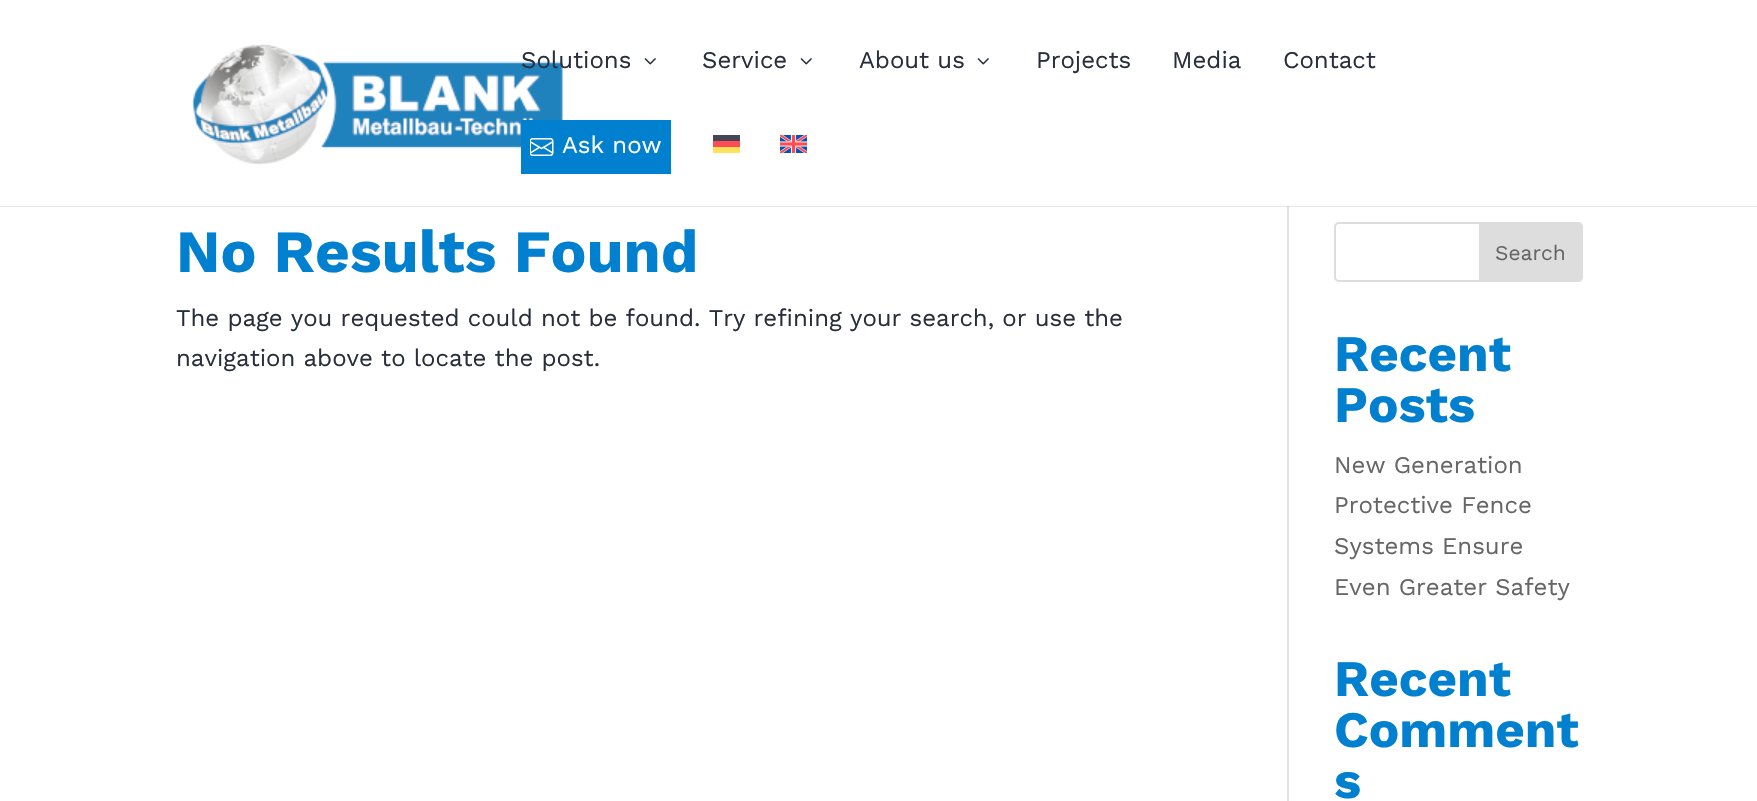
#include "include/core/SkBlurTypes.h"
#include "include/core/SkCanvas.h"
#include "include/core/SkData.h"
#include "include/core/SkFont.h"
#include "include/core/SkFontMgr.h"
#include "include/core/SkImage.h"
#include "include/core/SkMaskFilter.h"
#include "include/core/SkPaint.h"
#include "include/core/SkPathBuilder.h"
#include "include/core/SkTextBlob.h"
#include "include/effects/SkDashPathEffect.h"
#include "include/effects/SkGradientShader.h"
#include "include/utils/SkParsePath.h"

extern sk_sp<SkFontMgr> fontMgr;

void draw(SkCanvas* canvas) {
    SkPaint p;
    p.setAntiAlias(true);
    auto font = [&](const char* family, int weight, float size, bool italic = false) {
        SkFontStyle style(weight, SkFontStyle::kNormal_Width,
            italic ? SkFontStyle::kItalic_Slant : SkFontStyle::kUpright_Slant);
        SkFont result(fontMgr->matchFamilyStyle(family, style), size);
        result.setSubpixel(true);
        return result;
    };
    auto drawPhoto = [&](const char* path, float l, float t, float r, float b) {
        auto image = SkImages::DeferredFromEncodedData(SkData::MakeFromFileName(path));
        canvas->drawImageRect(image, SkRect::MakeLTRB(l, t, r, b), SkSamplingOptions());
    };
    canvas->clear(0xFFFFFFFF);
    p.setColor(0xFFE6E6E6);
    canvas->drawRect(SkRect::MakeLTRB(0, 206, 1757, 207), p);
    drawPhoto("media/1.png", 192, 44, 563, 165);
    auto font1 = font("Work Sans", 400, 24);
    p.setColor(0xFF292E3D);
    canvas->drawString("Solutions", 521, 68, font1, p);
    drawPhoto("media/2.png", 644, 58, 656, 65);
    canvas->drawString("Service", 702, 68, font1, p);
    drawPhoto("media/2.png", 800, 58, 812, 65);
    canvas->drawString("About us", 859, 68, font1, p);
    drawPhoto("media/2.png", 977, 58, 989, 65);
    {
        const struct { const char* s; float x, y; } items[] = {
            {"Projects", 1036, 68},
            {"Media", 1172, 68},
            {"Contact", 1283, 68},
        };
        for (auto [s, x, y] : items) {
            canvas->drawString(s, x, y, font1, p);
        }
    }
    p.setColor(0xFF0080CF);
    canvas->drawRect(SkRect::MakeLTRB(521, 120, 671, 174), p);
    drawPhoto("media/3.png", 530, 138, 554, 156);
    p.setColor(0xFFFFFFFF);
    canvas->drawString("Ask now", 562, 153, font1, p);
    {
        const struct { float l, t, r, b; SkColor color; } items[] = {
            {713, 135, 740, 141, 0xFF464655},
            {713, 141, 740, 147, 0xFFFF4B55},
            {713, 147, 740, 153, 0xFFFFE15A},
        };
        for (auto [l, t, r, b, color] : items) {
            p.setColor(color);
            canvas->drawRect(SkRect::MakeLTRB(l, t, r, b), p);
        }
    }
    drawPhoto("media/4.png", 780, 135, 807, 153);
    p.setColor(0xFFE2E2E2);
    canvas->drawRect(SkRect::MakeLTRB(1287, 207, 1289, 801), p);
    p.setColor(0xFFCBCBCB);
    canvas->drawRect(SkRect::MakeLTRB(1287, 206, 1289, 207), p);
    auto font2 = font("Work Sans", 700, 60);
    p.setColor(0xFF0080CF);
    canvas->drawString("No Results Found", 176, 272, font2, p);
    p.setColor(0xFF292E3D);
    canvas->drawString("The page you requested could not be found. Try refining your search, or use the", 176, 326, font1, p);
    canvas->drawString("navigation above to locate the post.", 176, 366, font1, p);
    p.setStyle(SkPaint::kStroke_Style);
    p.setStrokeWidth(2);
    p.setColor(0xFFDDDDDD);
    canvas->drawRoundRect(SkRect::MakeLTRB(1335, 223, 1582, 281), 4, 4, p);
    p.setStyle(SkPaint::kFill_Style);
    canvas->drawPath(SkPathBuilder().moveTo(1480, 223).lineTo(1578, 223).cubicTo(1580, 223, 1582, 225, 1582, 227).lineTo(1582, 277).cubicTo(1582, 279, 1580, 281, 1578, 281).lineTo(1480, 281).close().detach(), p);
    p.setStyle(SkPaint::kStroke_Style);
    canvas->drawPath(SkPathBuilder().moveTo(1480, 223).lineTo(1578, 223).cubicTo(1580, 223, 1582, 225, 1582, 227).lineTo(1582, 277).cubicTo(1582, 279, 1580, 281, 1578, 281).lineTo(1480, 281).close().detach(), p);
    auto font3 = font("Work Sans", 400, 21);
    p.setStyle(SkPaint::kFill_Style);
    p.setColor(0xFF666666);
    canvas->drawString("Search", 1495, 260, font3, p);
    auto font4 = font("Work Sans", 700, 51);
    p.setColor(0xFF0080CF);
    canvas->drawString("Recent", 1334, 371, font4, p);
    canvas->drawString("Posts", 1334, 422, font4, p);
    p.setColor(0xFF666666);
    {
        const struct { const char* s; float x, y; } items[] = {
            {"New Generation", 1334, 473},
            {"Protective Fence", 1334, 513},
            {"Systems Ensure", 1334, 554},
            {"Even Greater Safety", 1334, 595},
        };
        for (auto [s, x, y] : items) {
            canvas->drawString(s, x, y, font1, p);
        }
    }
    p.setColor(0xFF0080CF);
    {
        const struct { const char* s; float x, y; } items[] = {
            {"Recent", 1334, 696},
            {"Comment", 1334, 747},
            {"s", 1334, 798},
        };
        for (auto [s, x, y] : items) {
            canvas->drawString(s, x, y, font4, p);
        }
    }
}
